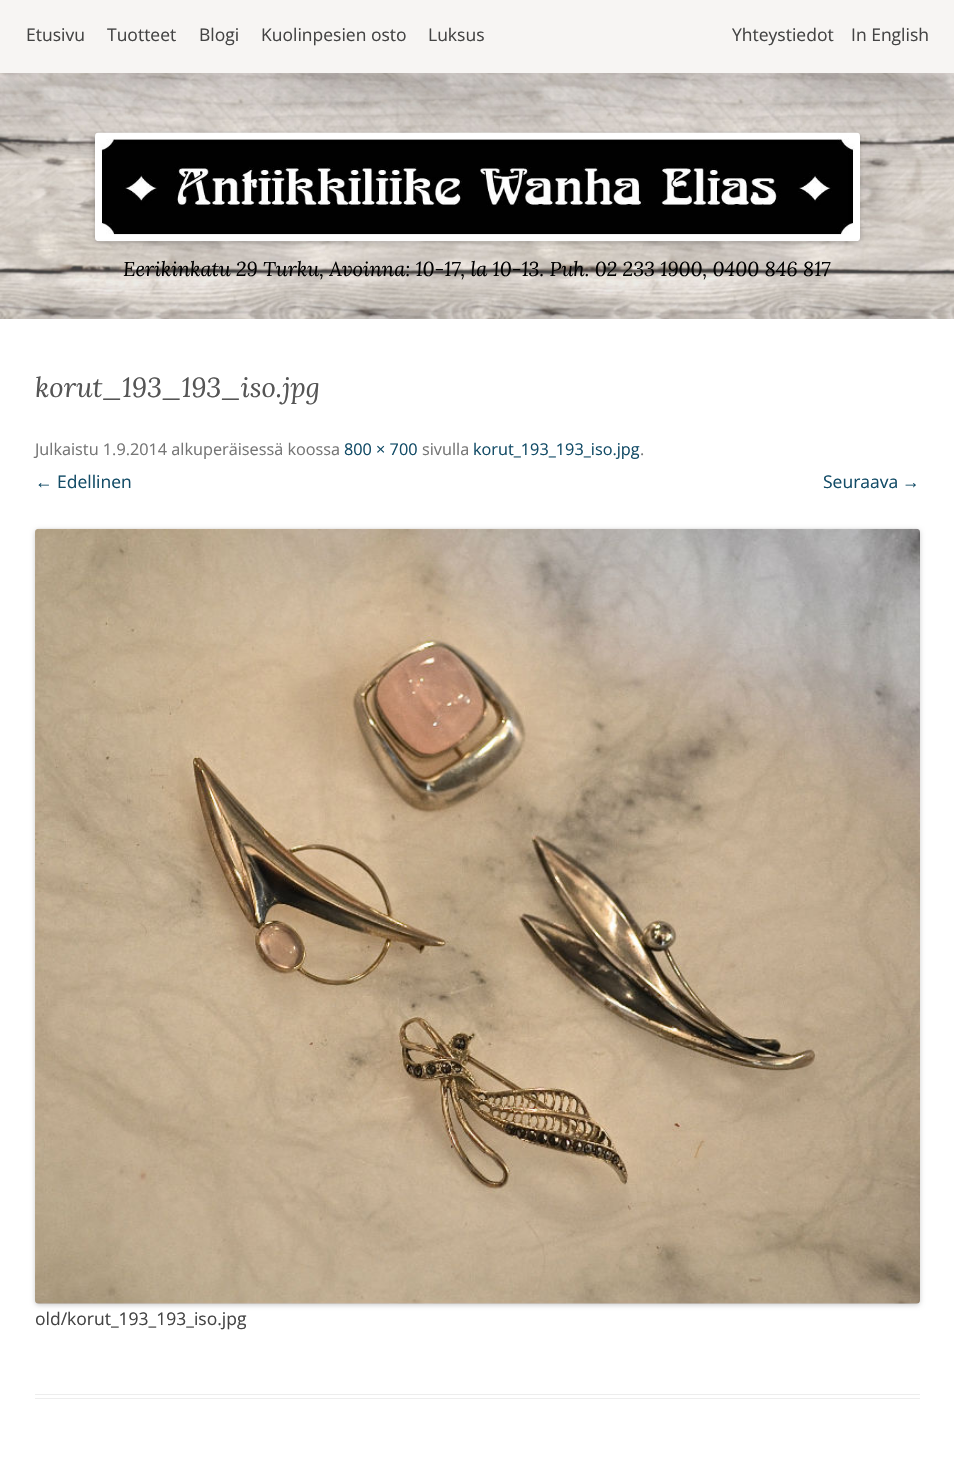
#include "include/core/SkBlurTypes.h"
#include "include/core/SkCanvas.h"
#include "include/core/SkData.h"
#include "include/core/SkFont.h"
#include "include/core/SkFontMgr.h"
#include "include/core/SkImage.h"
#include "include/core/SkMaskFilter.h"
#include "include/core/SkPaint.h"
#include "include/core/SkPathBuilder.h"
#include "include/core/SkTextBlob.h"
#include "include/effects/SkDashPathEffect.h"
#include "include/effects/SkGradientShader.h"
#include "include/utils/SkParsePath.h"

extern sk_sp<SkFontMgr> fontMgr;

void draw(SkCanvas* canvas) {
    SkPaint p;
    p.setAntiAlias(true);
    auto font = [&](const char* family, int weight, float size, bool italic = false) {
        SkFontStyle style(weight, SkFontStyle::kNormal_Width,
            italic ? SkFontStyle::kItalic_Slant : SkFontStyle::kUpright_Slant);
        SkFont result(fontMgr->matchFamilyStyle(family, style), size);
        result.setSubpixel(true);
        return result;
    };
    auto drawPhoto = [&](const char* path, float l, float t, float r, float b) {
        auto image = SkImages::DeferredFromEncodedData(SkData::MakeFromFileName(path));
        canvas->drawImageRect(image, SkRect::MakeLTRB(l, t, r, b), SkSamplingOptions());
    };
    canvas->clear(0xFFFFFFFF);
    drawPhoto("media/1.png", 0, 73, 954, 319);
    p.setColor(0x33000000);
    p.setMaskFilter(SkMaskFilter::MakeBlur(kNormal_SkBlurStyle, 31));
    canvas->drawRect(SkRect::MakeLTRB(0, 13, 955, 85), p);
    p.setMaskFilter(nullptr);
    p.setColor(0xFFF7F5F3);
    canvas->drawRect(SkRect::MakeLTRB(0, 0, 954, 73), p);
    auto font1 = font("Open Sans", 400, 17.5f);
    p.setColor(0xFF444444);
    {
        const struct { const char* s; float x, y; } items[] = {
            {"Etusivu", 26, 41},
            {"Tuotteet", 107, 41},
            {"Blogi", 199, 41},
            {"Kuolinpesien osto", 261, 41},
            {"Luksus", 428, 41},
            {"Yhteystiedot", 732, 41},
            {"In English", 851, 41},
        };
        for (auto [s, x, y] : items) {
            canvas->drawString(s, x, y, font1, p);
        }
    }
    p.setColor(0x33000000);
    p.setMaskFilter(SkMaskFilter::MakeBlur(kNormal_SkBlurStyle, 2.5f));
    canvas->drawRoundRect(SkRect::MakeLTRB(95, 134, 860, 243), 4, 4, p);
    p.setMaskFilter(nullptr);
    drawPhoto("media/2.png", 95, 132, 860, 242);
    auto font2 = font("Lora", 400, 20.1f, true);
    p.setColor(0xFF000000);
    canvas->drawString("Eerikinkatu 29 Turku, Avoinna: 10-17, la 10-13. Puh. 02 233 1900, 0400 846 817", 123, 276, font2, p);
    p.setColor(0x33000000);
    p.setMaskFilter(SkMaskFilter::MakeBlur(kNormal_SkBlurStyle, 31));
    canvas->drawRect(SkRect::MakeLTRB(0, 331, 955, 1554), p);
    p.setMaskFilter(nullptr);
    {
        const struct { float l, t, r, b; SkColor color; } items[] = {
            {0, 319, 954, 1461, 0xFFFFFFFF},
            {35, 1394, 920, 1395, 0xFFEDEDED},
            {35, 1398, 920, 1399, 0xFFEDEDED},
        };
        for (auto [l, t, r, b, color] : items) {
            p.setColor(color);
            canvas->drawRect(SkRect::MakeLTRB(l, t, r, b), p);
        }
    }
    auto font3 = font("Lora", 400, 27.5f, true);
    p.setColor(0xFF555555);
    canvas->drawString("korut_193_193_iso.jpg", 35, 397, font3, p);
    auto font4 = font("Open Sans", 400, 16.25f);
    p.setColor(0xFF757575);
    canvas->drawString("Julkaistu 1.9.2014 alkuperäisessä koossa", 35, 455, font4, p);
    p.setColor(0xFF134C67);
    canvas->drawString("800 × 700", 344, 455, font4, p);
    p.setColor(0xFF757575);
    canvas->drawString("sivulla", 422, 455, font4, p);
    p.setColor(0xFF134C67);
    canvas->drawString("korut_193_193_iso.jpg", 473, 455, font4, p);
    p.setColor(0xFF757575);
    canvas->drawString(".", 640, 455, font4, p);
    auto font5 = font("Liberation Sans", 400, 17.5f);
    p.setColor(0xFF134C67);
    canvas->drawString("←", 35, 488, font5, p);
    canvas->drawString("Edellinen", 57, 488, font1, p);
    canvas->drawString("Seuraava", 823, 488, font1, p);
    canvas->drawString("→", 902, 488, font5, p);
    p.setColor(0x33000000);
    p.setMaskFilter(SkMaskFilter::MakeBlur(kNormal_SkBlurStyle, 2.5f));
    canvas->drawRoundRect(SkRect::MakeLTRB(35, 530, 920, 1305), 4, 4, p);
    p.setMaskFilter(nullptr);
    drawPhoto("media/3.png", 35, 528, 920, 1304);
    p.setColor(0xFF444444);
    canvas->drawString("old/korut_193_193_iso.jpg", 35, 1325, font1, p);
}
